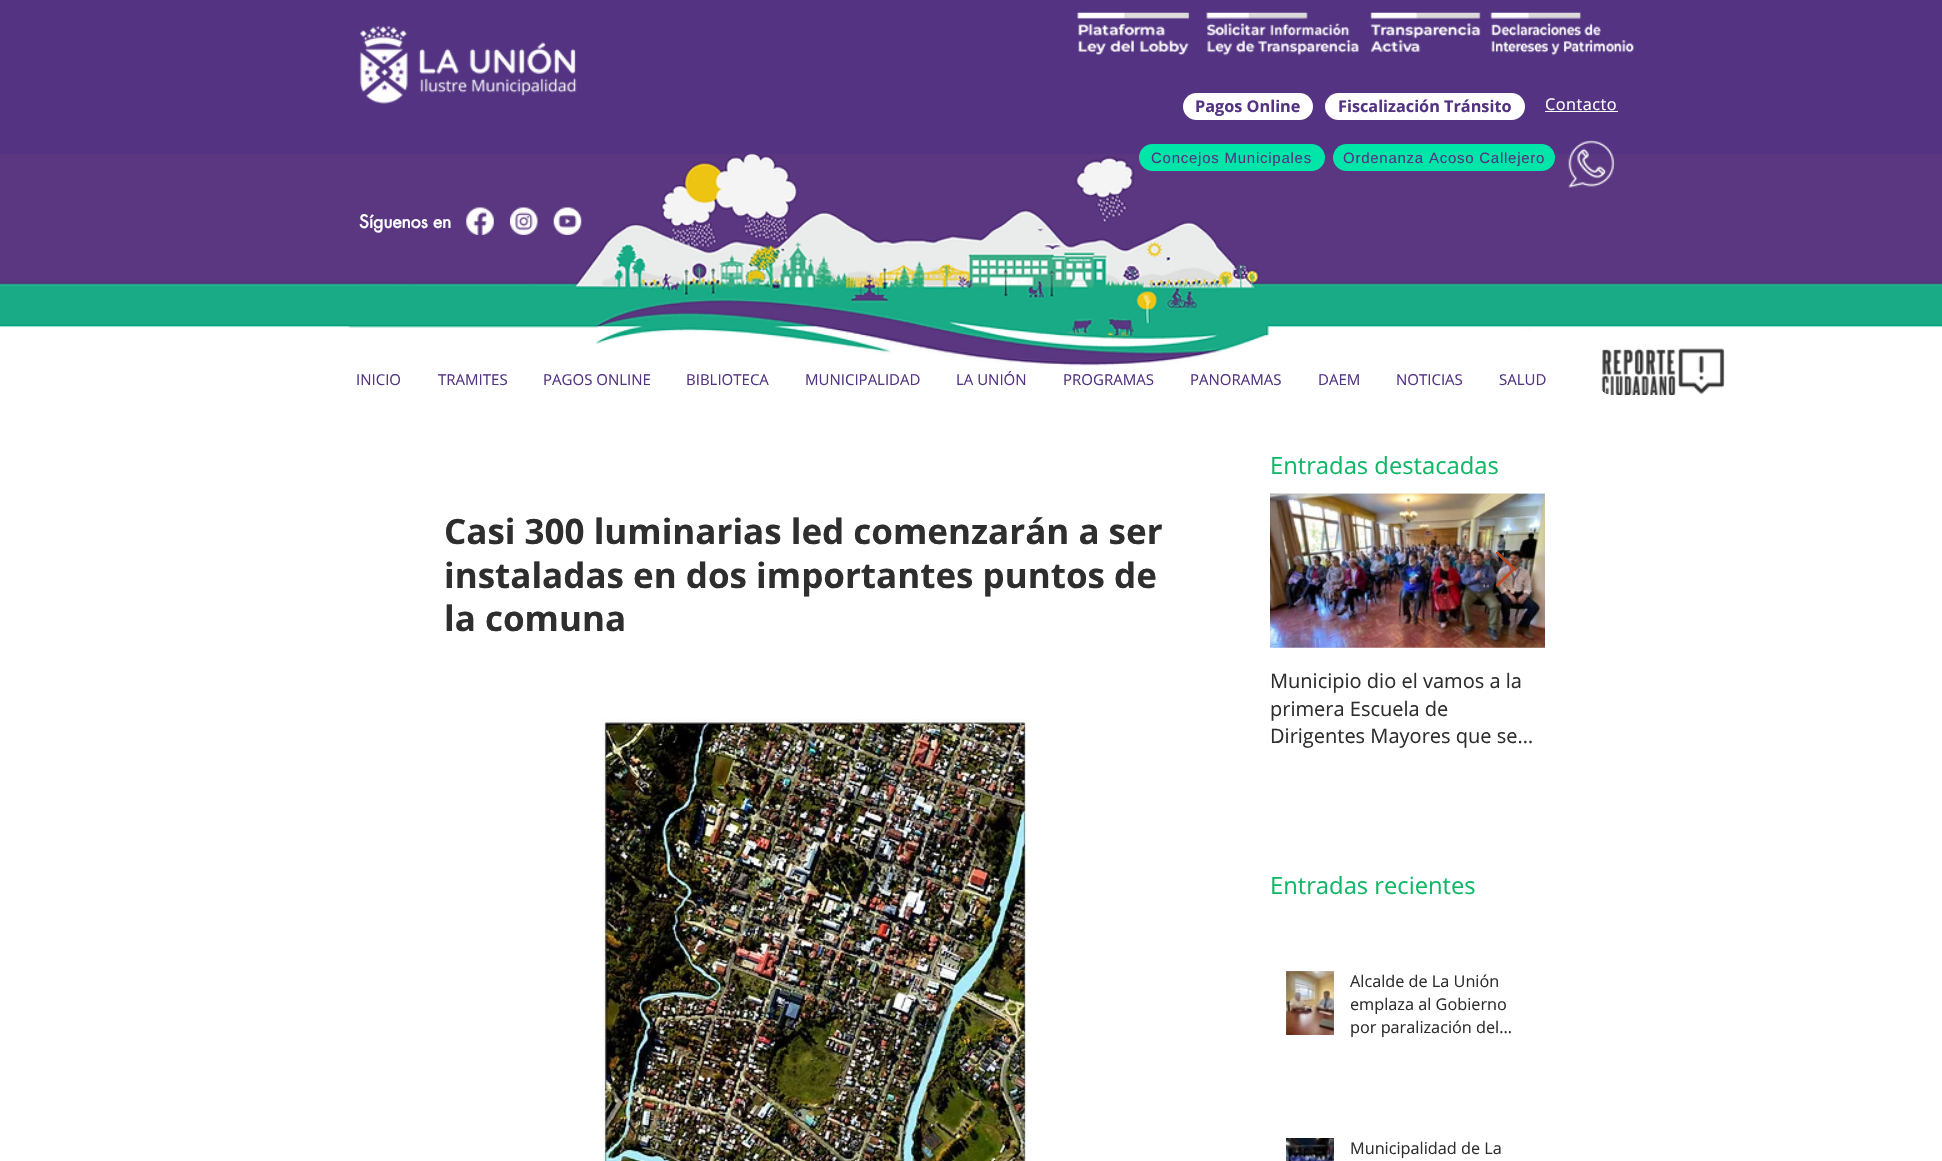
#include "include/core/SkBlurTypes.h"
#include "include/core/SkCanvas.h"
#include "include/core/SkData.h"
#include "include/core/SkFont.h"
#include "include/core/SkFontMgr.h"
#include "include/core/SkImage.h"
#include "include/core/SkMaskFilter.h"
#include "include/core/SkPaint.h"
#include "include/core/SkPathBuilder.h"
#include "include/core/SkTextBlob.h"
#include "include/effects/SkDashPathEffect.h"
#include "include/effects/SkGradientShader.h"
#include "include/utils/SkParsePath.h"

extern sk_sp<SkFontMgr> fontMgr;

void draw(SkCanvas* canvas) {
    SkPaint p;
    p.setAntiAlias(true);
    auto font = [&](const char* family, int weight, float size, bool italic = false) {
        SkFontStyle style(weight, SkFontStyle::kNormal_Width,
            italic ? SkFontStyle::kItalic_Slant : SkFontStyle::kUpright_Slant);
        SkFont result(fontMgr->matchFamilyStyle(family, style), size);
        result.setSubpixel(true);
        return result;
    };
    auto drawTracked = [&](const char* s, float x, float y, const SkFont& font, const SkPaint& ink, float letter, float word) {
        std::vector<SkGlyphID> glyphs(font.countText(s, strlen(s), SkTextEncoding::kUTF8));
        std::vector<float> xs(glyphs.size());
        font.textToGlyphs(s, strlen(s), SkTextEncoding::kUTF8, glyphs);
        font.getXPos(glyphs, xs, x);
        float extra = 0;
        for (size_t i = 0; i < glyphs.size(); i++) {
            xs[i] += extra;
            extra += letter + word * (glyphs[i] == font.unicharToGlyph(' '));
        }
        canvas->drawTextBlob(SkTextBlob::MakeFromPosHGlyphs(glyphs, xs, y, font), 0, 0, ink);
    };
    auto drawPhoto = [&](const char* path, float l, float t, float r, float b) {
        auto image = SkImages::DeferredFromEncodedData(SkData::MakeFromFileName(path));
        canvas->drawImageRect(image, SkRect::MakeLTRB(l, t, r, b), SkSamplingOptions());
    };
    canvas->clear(0xFFFFFFFF);
    p.setColor(0xFF533382);
    canvas->drawRect(SkRect::MakeLTRB(0, 0, 1942, 154), p);
    drawPhoto("media/1.png", 359, 26, 577, 104);
    drawPhoto("media/2.png", 1077, 12, 1190, 55);
    drawPhoto("media/3.png", 1206, 12, 1359, 56);
    drawPhoto("media/4.png", 1370, 12, 1481, 53);
    drawPhoto("media/5.png", 1490, 12, 1635, 56);
    p.setColor(0xFFFFFFFF);
    canvas->drawRoundRect(SkRect::MakeLTRB(1183, 93, 1313, 120), 13.5f, 13.5f, p);
    auto font1 = font("Open Sans", 700, 16.25f);
    p.setColor(0xFF533382);
    canvas->drawString("Pagos Online", 1195, 112, font1, p);
    p.setColor(0xFFFFFFFF);
    canvas->drawRoundRect(SkRect::MakeLTRB(1325, 93, 1525, 120), 13.5f, 13.5f, p);
    p.setColor(0xFF533382);
    canvas->drawString("Fiscalización Tránsito", 1338, 112, font1, p);
    auto font2 = font("Open Sans", 400, 16.25f);
    p.setColor(0xFFFFFFFF);
    drawTracked("Contacto", 1545, 110, font2, p, 0.5f, 0);
    canvas->drawRect(SkRect::MakeLTRB(1545, 111, 1618, 112), p);
    drawPhoto("media/7.png", 0, 153, 1942, 406);
    p.setColor(0xFF00E6A8);
    canvas->drawRoundRect(SkRect::MakeLTRB(1139, 144, 1325, 171), 13.5f, 13.5f, p);
    auto font3 = font("Liberation Sans", 400, 15);
    p.setColor(0xFF533382);
    drawTracked("Concejos Municipales", 1151, 163, font3, p, 0.75f, 0);
    p.setColor(0xFF00E6A8);
    canvas->drawRoundRect(SkRect::MakeLTRB(1333, 144, 1555, 171), 13.5f, 13.5f, p);
    p.setColor(0xFF533382);
    drawTracked("Ordenanza Acoso Callejero", 1343, 163, font3, p, 0.75f, 0);
    drawPhoto("media/6.png", 1568, 140, 1615, 188);
    auto font4 = font("futura", 700, 17.5f);
    p.setColor(0xFFFFFFFF);
    canvas->drawString("Síguenos en", 359, 228, font4, p);
    drawPhoto("media/8.png", 466, 207, 494, 235);
    drawPhoto("media/9.png", 510, 207, 538, 235);
    drawPhoto("media/10.png", 553, 207, 582, 235);
    auto font5 = font("Open Sans", 400, 15);
    p.setColor(0xFF533382);
    {
        const struct { const char* s; float x, y; } items[] = {
            {"INICIO", 356, 385},
            {"TRAMITES", 438, 385},
            {"PAGOS ONLINE", 543, 385},
            {"BIBLIOTECA", 686, 385},
            {"MUNICIPALIDAD", 805, 385},
            {"LA UNIÓN", 956, 385},
            {"PROGRAMAS", 1063, 385},
            {"PANORAMAS", 1190, 385},
            {"DAEM", 1318, 385},
            {"NOTICIAS", 1396, 385},
            {"SALUD", 1499, 385},
        };
        for (auto [s, x, y] : items) {
            canvas->drawString(s, x, y, font5, p);
        }
    }
    drawPhoto("media/11.png", 1601, 348, 1725, 395);
    auto font6 = font("Open Sans", 400, 23.75f);
    p.setColor(0xFF10B766);
    canvas->drawString("Entradas destacadas", 1270, 474, font6, p);
    auto font7 = font("Open Sans", 700, 35);
    p.setColor(0xFF2F2E2E);
    {
        const struct { const char* s; float x, y; } items[] = {
            {"Casi 300 luminarias led comenzarán a ser", 444, 544},
            {"instaladas en dos importantes puntos de", 444, 588},
            {"la comuna", 444, 631},
        };
        for (auto [s, x, y] : items) {
            canvas->drawString(s, x, y, font7, p);
        }
    }
    drawPhoto("media/12.png", 601, 719, 1028, 1161);
    drawPhoto("media/13.png", 1270, 493, 1545, 648);
    drawPhoto("media/14.png", 1270, 493, 1545, 648);
    p.setColor(0xE6C34716);
    canvas->drawPath(SkPathBuilder().moveTo(1496, 553).lineTo(1497.5f, 551.5f).lineTo(1515.5f, 569).lineTo(1497.5f, 586.5f).lineTo(1496, 585).lineTo(1512.5f, 569).close().detach(), p);
    p.setStyle(SkPaint::kStroke_Style);
    p.setStrokeWidth(1);
    canvas->drawPath(SkPathBuilder().moveTo(1496, 553).lineTo(1497.5f, 551.5f).lineTo(1515.5f, 569).lineTo(1497.5f, 586.5f).lineTo(1496, 585).lineTo(1512.5f, 569).close().detach(), p);
    auto font8 = font("Open Sans", 400, 20);
    p.setStyle(SkPaint::kFill_Style);
    p.setColor(0xFF2F2E2E);
    {
        const struct { const char* s; float x, y; } items[] = {
            {"Municipio dio el vamos a la", 1270, 688},
            {"primera Escuela de", 1270, 716},
            {"Dirigentes Mayores que se…", 1270, 743},
        };
        for (auto [s, x, y] : items) {
            canvas->drawString(s, x, y, font8, p);
        }
    }
    p.setColor(0xFF10B766);
    canvas->drawString("Entradas recientes", 1270, 894, font6, p);
    drawPhoto("media/15.png", 1286, 971, 1334, 1035);
    drawPhoto("media/16.png", 1286, 971, 1334, 1035);
    p.setColor(0xFF2F2E2E);
    {
        const struct { const char* s; float x, y; } items[] = {
            {"Alcalde de La Unión", 1350, 987},
            {"emplaza al Gobierno", 1350, 1010},
            {"por paralización del…", 1350, 1033},
        };
        for (auto [s, x, y] : items) {
            canvas->drawString(s, x, y, font2, p);
        }
    }
    drawPhoto("media/17.png", 1286, 1138, 1334, 1161);
    canvas->drawString("Municipalidad de La", 1350, 1154, font2, p);
}
